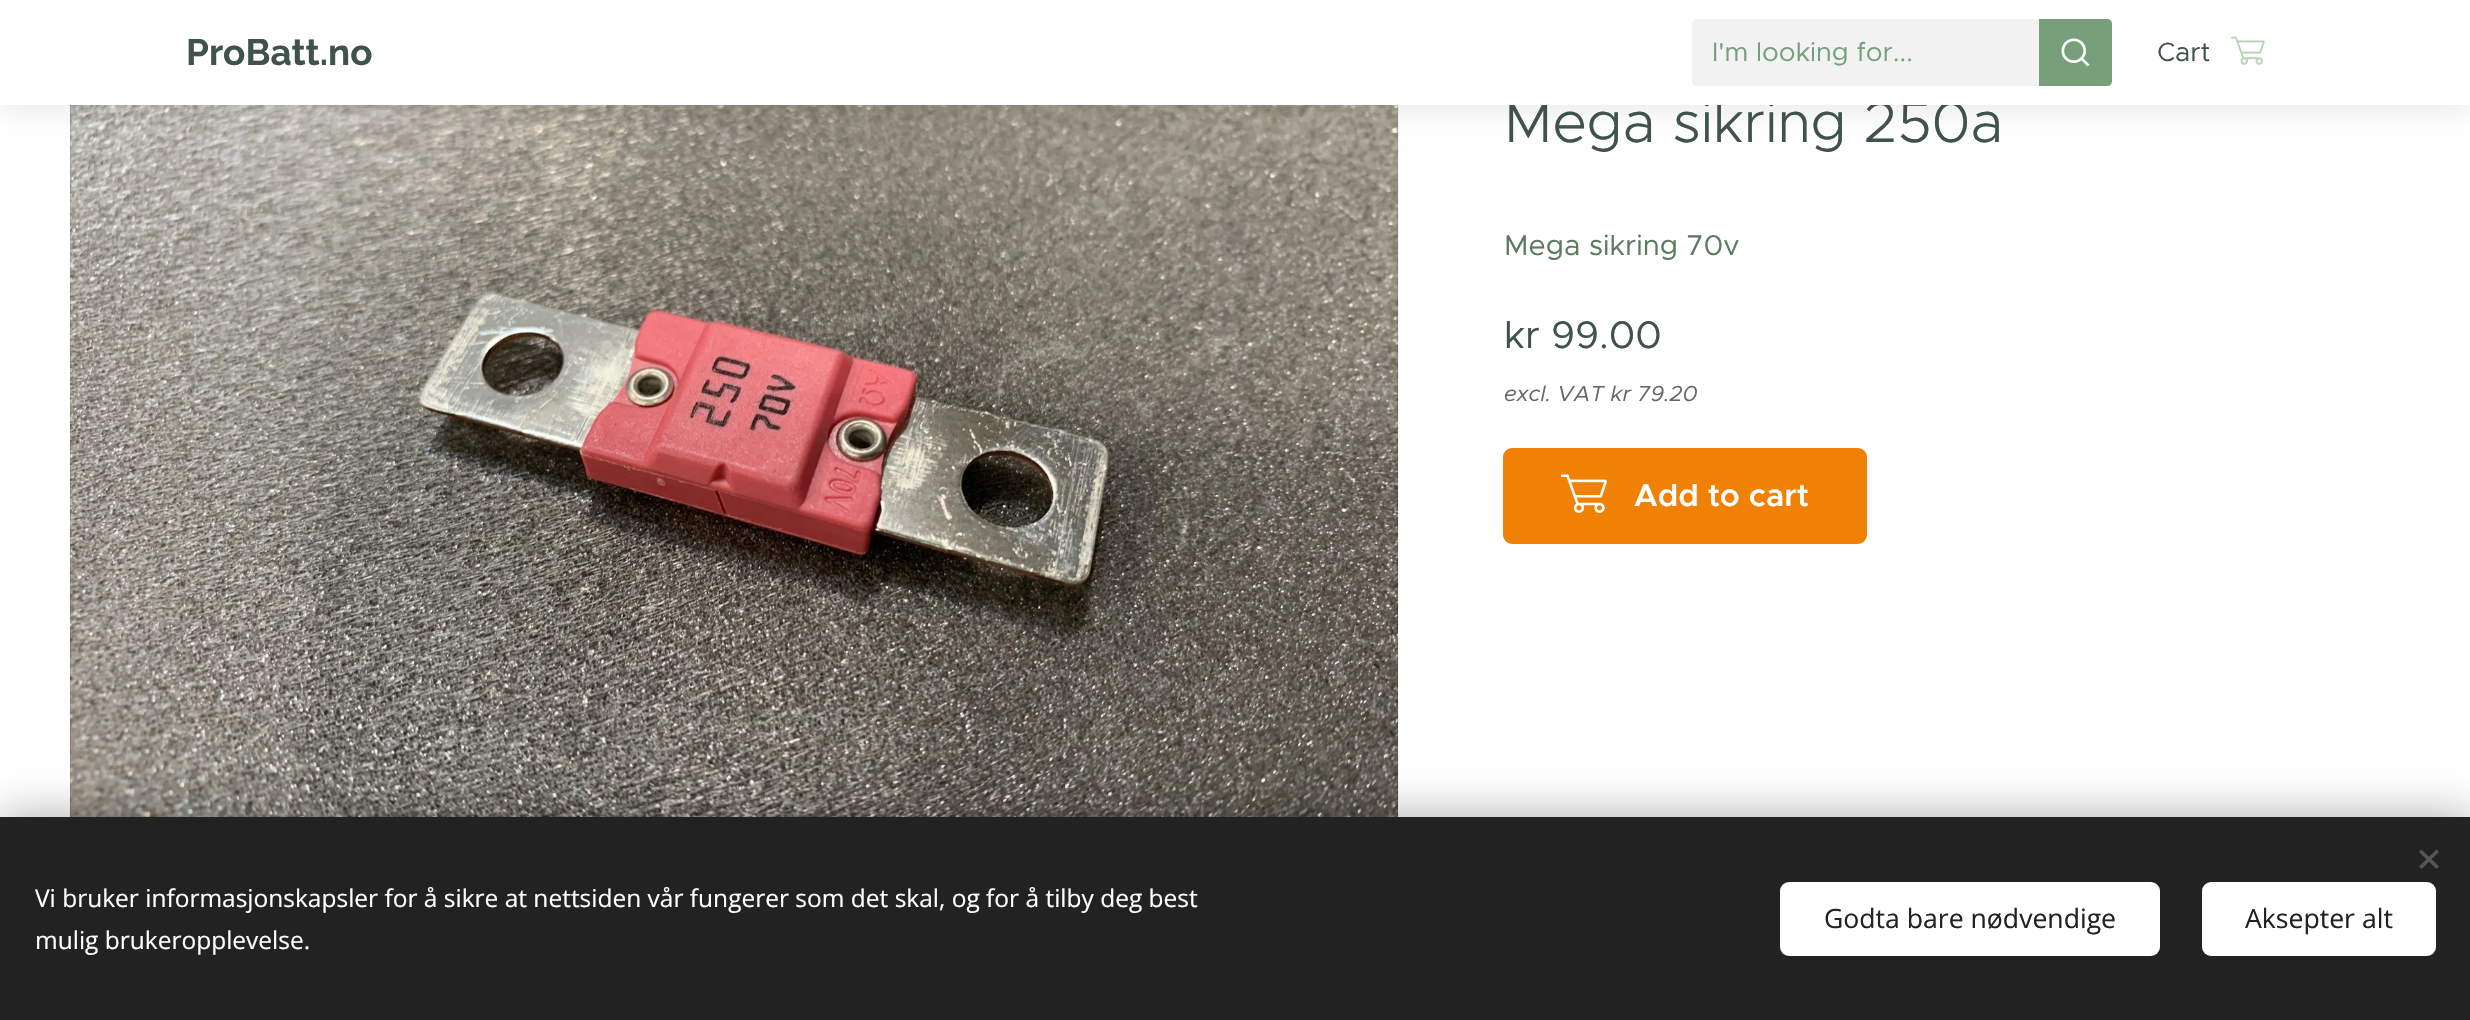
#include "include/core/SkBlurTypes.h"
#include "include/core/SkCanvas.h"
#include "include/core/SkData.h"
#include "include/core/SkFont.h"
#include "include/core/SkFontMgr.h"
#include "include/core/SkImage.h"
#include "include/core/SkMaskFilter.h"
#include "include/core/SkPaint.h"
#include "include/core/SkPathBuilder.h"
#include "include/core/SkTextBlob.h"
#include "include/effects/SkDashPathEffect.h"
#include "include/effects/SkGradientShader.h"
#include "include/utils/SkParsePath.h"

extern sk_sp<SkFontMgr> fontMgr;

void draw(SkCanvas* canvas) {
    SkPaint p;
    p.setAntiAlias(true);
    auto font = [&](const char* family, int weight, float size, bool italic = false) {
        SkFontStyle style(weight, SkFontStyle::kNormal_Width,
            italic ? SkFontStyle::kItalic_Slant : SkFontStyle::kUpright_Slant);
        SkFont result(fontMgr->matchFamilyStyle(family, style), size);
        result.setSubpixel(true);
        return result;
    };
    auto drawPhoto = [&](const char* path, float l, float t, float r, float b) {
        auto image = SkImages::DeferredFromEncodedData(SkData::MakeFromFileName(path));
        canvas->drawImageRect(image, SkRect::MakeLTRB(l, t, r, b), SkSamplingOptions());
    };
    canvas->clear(0xFFFFFFFF);
    drawPhoto("media/3.png", 70, 105, 1399, 817);
    p.setColor(0x12000000);
    p.setMaskFilter(SkMaskFilter::MakeBlur(kNormal_SkBlurStyle, 13));
    canvas->drawRect(SkRect::MakeLTRB(0, 9, 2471, 114), p);
    p.setMaskFilter(nullptr);
    auto font1 = font("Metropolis", 300, 57.75f);
    p.setColor(0xFF3F524C);
    canvas->drawString("Mega sikring 250a", 1504, 142, font1, p);
    p.setColor(0xFFFFFFFF);
    canvas->drawRect(SkRect::MakeLTRB(0, 0, 2470, 105), p);
    auto font2 = font("Raleway", 700, 36.75f);
    p.setColor(0xFF3F524C);
    canvas->drawString("ProBatt.no", 186, 65, font2, p);
    p.setColor(0xFFF2F2F2);
    canvas->drawPath(SkPathBuilder().moveTo(1697, 19).lineTo(2039, 19).lineTo(2039, 86).lineTo(1697, 86).cubicTo(1694, 86, 1692, 84, 1692, 81).lineTo(1692, 24).cubicTo(1692, 21, 1694, 19, 1697, 19).close().detach(), p);
    auto font3 = font("Metropolis", 400, 26.6f);
    p.setColor(0xFF769F7A);
    canvas->drawString("I'm looking for...", 1712, 61, font3, p);
    canvas->drawPath(SkPathBuilder().moveTo(2039, 19).lineTo(2107, 19).cubicTo(2110, 19, 2112, 21, 2112, 24).lineTo(2112, 81).cubicTo(2112, 84, 2110, 86, 2107, 86).lineTo(2039, 86).close().detach(), p);
    drawPhoto("media/1.png", 2061, 38, 2090, 67);
    p.setColor(0xFF3F524C);
    canvas->drawString("Cart", 2157, 61, font3, p);
    drawPhoto("media/2.png", 2231, 36, 2265, 65);
    auto font4 = font("Metropolis", 400, 28.75f);
    p.setColor(0xFF5A7B5E);
    canvas->drawString("Mega sikring 70v", 1504, 255, font4, p);
    auto font5 = font("Metropolis", 400, 38.5f);
    p.setColor(0xFF3F524C);
    canvas->drawString("kr 99.00", 1504, 348, font5, p);
    auto font6 = font("Metropolis", 400, 21.9f, true);
    p.setColor(0xFF666666);
    canvas->drawString("excl. VAT kr 79.20", 1504, 401, font6, p);
    p.setColor(0xFFF08105);
    canvas->drawRoundRect(SkRect::MakeLTRB(1504, 449, 1866, 543), 8, 8, p);
    p.setStyle(SkPaint::kStroke_Style);
    p.setStrokeWidth(2);
    canvas->drawRoundRect(SkRect::MakeLTRB(1504, 449, 1866, 543), 8, 8, p);
    drawPhoto("media/4.png", 1561, 474, 1608, 513);
    auto font7 = font("Metropolis", 600, 31.5f);
    p.setStyle(SkPaint::kFill_Style);
    p.setColor(0xFFFFFFFF);
    canvas->drawString("Add to cart", 1634, 506, font7, p);
    p.setColor(0x54000000);
    p.setMaskFilter(SkMaskFilter::MakeBlur(kNormal_SkBlurStyle, 22));
    canvas->drawRect(SkRect::MakeLTRB(0, 817, 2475, 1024), p);
    p.setMaskFilter(nullptr);
    p.setColor(0xFF222222);
    canvas->drawRect(SkRect::MakeLTRB(0, 817, 2470, 1020), p);
    p.setColor(0xFF555555);
    canvas->drawPath(SkPathBuilder().moveTo(2419, 866.5f).lineTo(2436.5f, 849.5f).lineTo(2439, 852).lineTo(2421.5f, 869).close().detach(), p);
    canvas->drawPath(SkPathBuilder().moveTo(2421.5f, 849.5f).lineTo(2439, 866.5f).lineTo(2436.5f, 869).lineTo(2419, 852).close().detach(), p);
    auto font8 = font("Open Sans", 400, 24.5f);
    p.setColor(0xFFFFFFFF);
    canvas->drawString("Vi bruker informasjonskapsler for å sikre at nettsiden vår fungerer som det skal, og for å tilby deg best", 35, 907, font8, p);
    canvas->drawString("mulig brukeropplevelse.", 35, 949, font8, p);
    canvas->drawRoundRect(SkRect::MakeLTRB(1780, 882, 2160, 956), 9, 9, p);
    auto font9 = font("Open Sans", 400, 26.6f);
    p.setColor(0xFF222222);
    canvas->drawString("Godta bare nødvendige", 1824, 928, font9, p);
    p.setColor(0xFFFFFFFF);
    canvas->drawRoundRect(SkRect::MakeLTRB(2202, 882, 2436, 956), 9, 9, p);
    p.setColor(0xFF222222);
    canvas->drawString("Aksepter alt", 2245, 928, font9, p);
}
